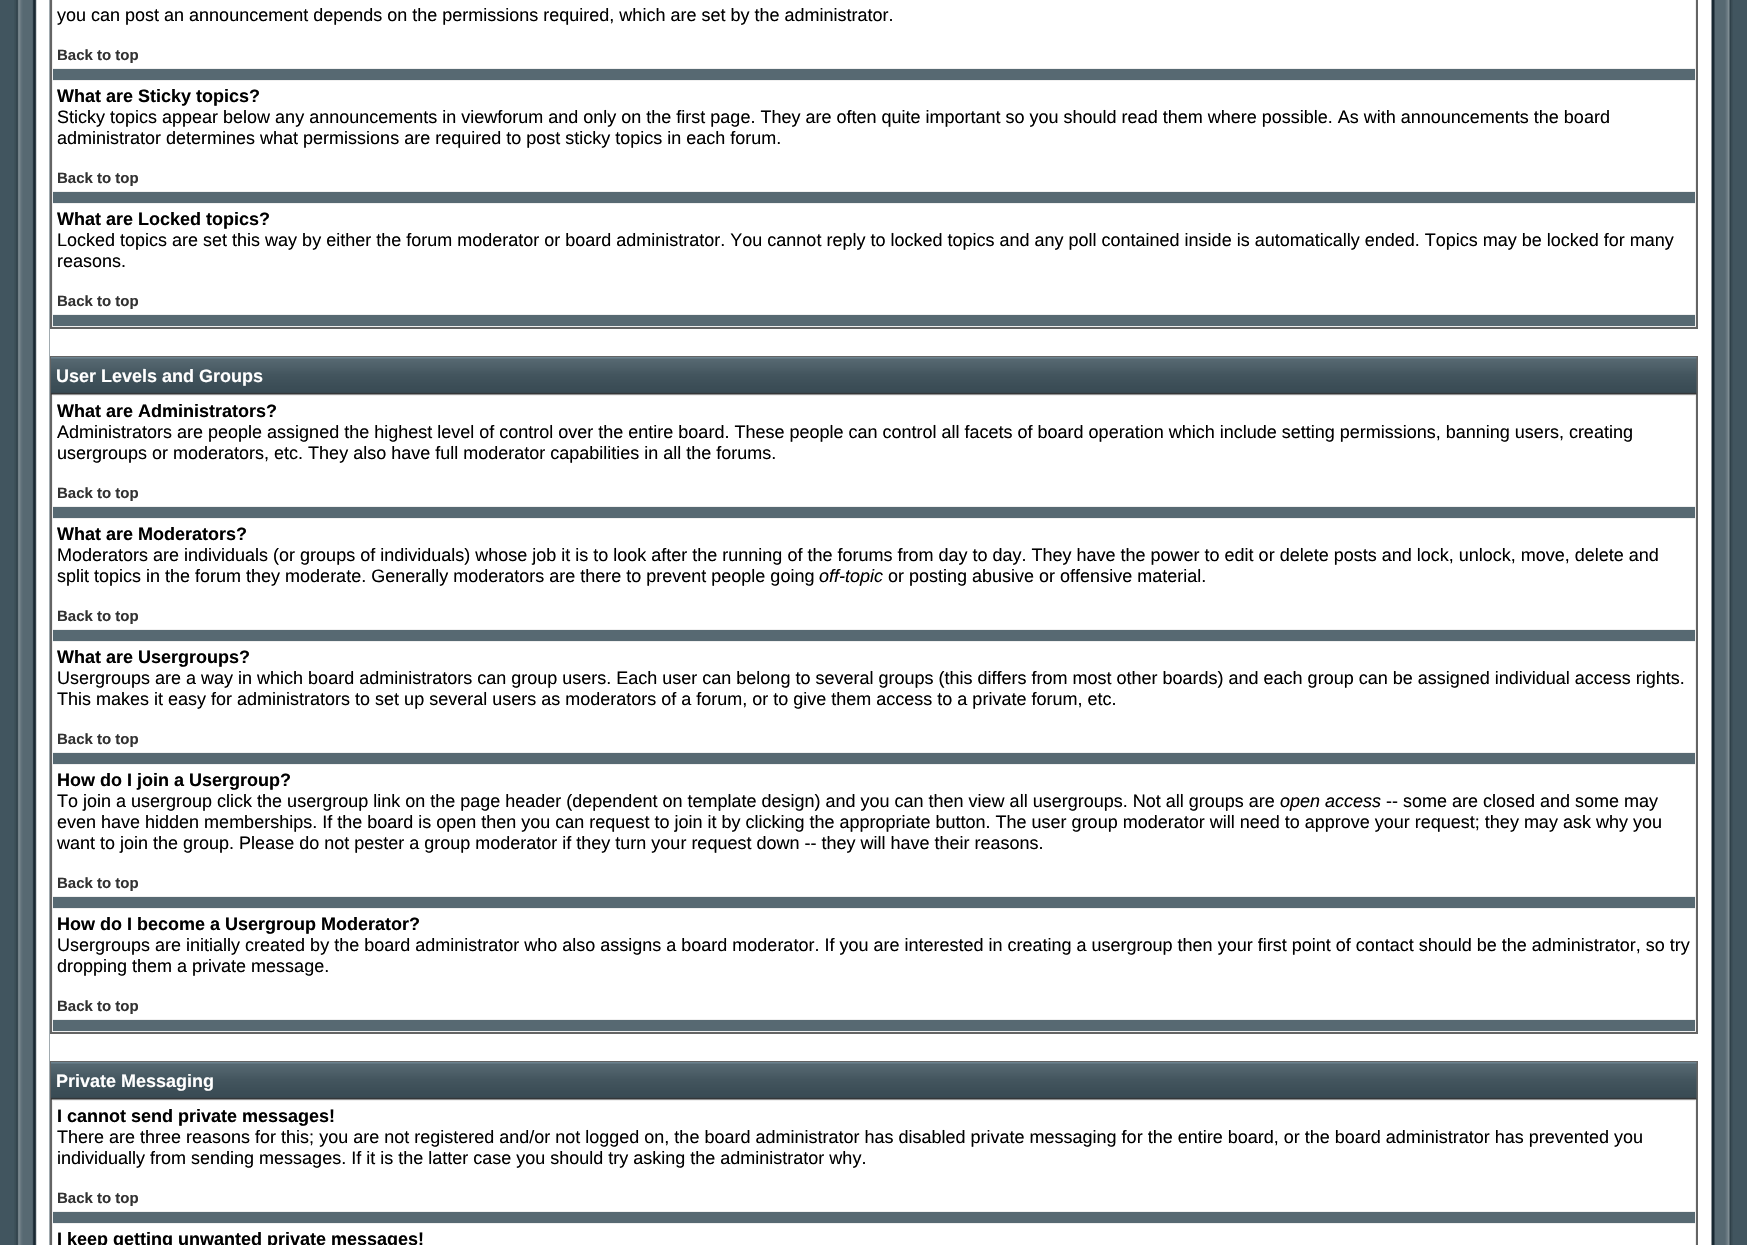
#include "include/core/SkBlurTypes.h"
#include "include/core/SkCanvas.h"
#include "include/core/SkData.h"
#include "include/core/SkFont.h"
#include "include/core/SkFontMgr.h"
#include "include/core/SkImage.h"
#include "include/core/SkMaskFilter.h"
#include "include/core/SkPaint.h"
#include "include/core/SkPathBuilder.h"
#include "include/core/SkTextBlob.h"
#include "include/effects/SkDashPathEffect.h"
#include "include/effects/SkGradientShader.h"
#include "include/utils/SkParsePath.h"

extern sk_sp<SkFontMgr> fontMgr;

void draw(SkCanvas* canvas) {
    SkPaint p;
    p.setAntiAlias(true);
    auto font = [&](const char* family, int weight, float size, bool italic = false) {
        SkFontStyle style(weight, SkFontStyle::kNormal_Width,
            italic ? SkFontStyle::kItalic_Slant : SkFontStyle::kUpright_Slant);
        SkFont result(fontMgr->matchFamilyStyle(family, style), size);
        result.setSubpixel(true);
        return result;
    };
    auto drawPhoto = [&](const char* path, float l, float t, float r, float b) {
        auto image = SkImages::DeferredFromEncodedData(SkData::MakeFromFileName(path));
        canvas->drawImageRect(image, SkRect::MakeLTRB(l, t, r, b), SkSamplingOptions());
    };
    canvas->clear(0xFF41555F);
    drawPhoto("media/1.png", 14, 0, 50, 1245);
    p.setColor(0xFFFFFFFF);
    canvas->drawRect(SkRect::MakeLTRB(50, 329, 1698, 1061), p);
    p.setColor(0xFFF0F0F0);
    canvas->drawRect(SkRect::MakeLTRB(51, -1, 1697, 328), p);
    p.setStyle(SkPaint::kStroke_Style);
    p.setStrokeWidth(2);
    p.setColor(0xFF646464);
    canvas->drawRect(SkRect::MakeLTRB(51, -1, 1697, 328), p);
    p.setStyle(SkPaint::kFill_Style);
    p.setColor(0xFFFFFFFF);
    canvas->drawRect(SkRect::MakeLTRB(53, 0, 1695, 68), p);
    auto font1 = font("Liberation Sans", 400, 18);
    p.setColor(0xFF000000);
    canvas->drawString("you can post an announcement depends on the permissions required, which are set by the administrator.", 57, 21, font1, p);
    auto font2 = font("Liberation Sans", 700, 15);
    p.setColor(0xFF323232);
    canvas->drawString("Back to top", 57, 60, font2, p);
    p.setColor(0xFF576972);
    canvas->drawRect(SkRect::MakeLTRB(53, 69, 1695, 80), p);
    p.setColor(0xFFFFFFFF);
    canvas->drawRect(SkRect::MakeLTRB(53, 81, 1695, 191), p);
    auto font3 = font("Liberation Sans", 700, 18);
    p.setColor(0xFF000000);
    canvas->drawString("What are Sticky topics?", 57, 102, font3, p);
    canvas->drawString("Sticky topics appear below any announcements in viewforum and only on the first page. They are often quite important so you should read them where possible. As with announcements the board", 57, 123, font1, p);
    canvas->drawString("administrator determines what permissions are required to post sticky topics in each forum.", 57, 144, font1, p);
    p.setColor(0xFF323232);
    canvas->drawString("Back to top", 57, 183, font2, p);
    p.setColor(0xFF576972);
    canvas->drawRect(SkRect::MakeLTRB(53, 192, 1695, 203), p);
    p.setColor(0xFFFFFFFF);
    canvas->drawRect(SkRect::MakeLTRB(53, 204, 1695, 314), p);
    p.setColor(0xFF000000);
    canvas->drawString("What are Locked topics?", 57, 225, font3, p);
    canvas->drawString("Locked topics are set this way by either the forum moderator or board administrator. You cannot reply to locked topics and any poll contained inside is automatically ended. Topics may be locked for many", 57, 246, font1, p);
    canvas->drawString("reasons.", 57, 267, font1, p);
    p.setColor(0xFF323232);
    canvas->drawString("Back to top", 57, 306, font2, p);
    p.setColor(0xFF576972);
    canvas->drawRect(SkRect::MakeLTRB(53, 315, 1695, 326), p);
    p.setColor(0xFFF0F0F0);
    canvas->drawRect(SkRect::MakeLTRB(52, 394, 1696, 1032), p);
    p.setStyle(SkPaint::kStroke_Style);
    p.setColor(0xFF646464);
    canvas->drawRect(SkRect::MakeLTRB(51, 357, 1697, 1033), p);
    drawPhoto("media/2.png", 51, 357, 1697, 395);
    p.setStyle(SkPaint::kFill_Style);
    p.setColor(0xFFFFFFFF);
    canvas->drawString("User Levels and Groups", 56, 382, font3, p);
    canvas->drawRect(SkRect::MakeLTRB(53, 396, 1695, 506), p);
    p.setColor(0xFF000000);
    canvas->drawString("What are Administrators?", 57, 417, font3, p);
    canvas->drawString("Administrators are people assigned the highest level of control over the entire board. These people can control all facets of board operation which include setting permissions, banning users, creating", 57, 438, font1, p);
    canvas->drawString("usergroups or moderators, etc. They also have full moderator capabilities in all the forums.", 57, 459, font1, p);
    p.setColor(0xFF323232);
    canvas->drawString("Back to top", 57, 498, font2, p);
    p.setColor(0xFF576972);
    canvas->drawRect(SkRect::MakeLTRB(53, 507, 1695, 518), p);
    p.setColor(0xFFFFFFFF);
    canvas->drawRect(SkRect::MakeLTRB(53, 519, 1695, 629), p);
    p.setColor(0xFF000000);
    canvas->drawString("What are Moderators?", 57, 540, font3, p);
    canvas->drawString("Moderators are individuals (or groups of individuals) whose job it is to look after the running of the forums from day to day. They have the power to edit or delete posts and lock, unlock, move, delete and", 57, 561, font1, p);
    canvas->drawString("split topics in the forum they moderate. Generally moderators are there to prevent people going", 57, 582, font1, p);
    auto font4 = font("Liberation Sans", 400, 18, true);
    canvas->drawString("off-topic", 819, 582, font4, p);
    canvas->drawString("or posting abusive or offensive material.", 888, 582, font1, p);
    p.setColor(0xFF323232);
    canvas->drawString("Back to top", 57, 621, font2, p);
    p.setColor(0xFF576972);
    canvas->drawRect(SkRect::MakeLTRB(53, 630, 1695, 641), p);
    p.setColor(0xFFFFFFFF);
    canvas->drawRect(SkRect::MakeLTRB(53, 642, 1695, 752), p);
    p.setColor(0xFF000000);
    canvas->drawString("What are Usergroups?", 57, 663, font3, p);
    canvas->drawString("Usergroups are a way in which board administrators can group users. Each user can belong to several groups (this differs from most other boards) and each group can be assigned individual access rights.", 57, 684, font1, p);
    canvas->drawString("This makes it easy for administrators to set up several users as moderators of a forum, or to give them access to a private forum, etc.", 57, 705, font1, p);
    p.setColor(0xFF323232);
    canvas->drawString("Back to top", 57, 744, font2, p);
    p.setColor(0xFF576972);
    canvas->drawRect(SkRect::MakeLTRB(53, 753, 1695, 764), p);
    p.setColor(0xFFFFFFFF);
    canvas->drawRect(SkRect::MakeLTRB(53, 765, 1695, 896), p);
    p.setColor(0xFF000000);
    canvas->drawString("How do I join a Usergroup?", 57, 786, font3, p);
    canvas->drawString("To join a usergroup click the usergroup link on the page header (dependent on template design) and you can then view all usergroups. Not all groups are", 57, 807, font1, p);
    canvas->drawString("open access", 1280, 807, font4, p);
    {
        const struct { const char* s; float x, y; } items[] = {
            {"-- some are closed and some may", 1386, 807},
            {"even have hidden memberships. If the board is open then you can request to join it by clicking the appropriate button. The user group moderator will need to approve your request; they may ask why you", 57, 828},
            {"want to join the group. Please do not pester a group moderator if they turn your request down -- they will have their reasons.", 57, 849},
        };
        for (auto [s, x, y] : items) {
            canvas->drawString(s, x, y, font1, p);
        }
    }
    p.setColor(0xFF323232);
    canvas->drawString("Back to top", 57, 888, font2, p);
    p.setColor(0xFF576972);
    canvas->drawRect(SkRect::MakeLTRB(53, 897, 1695, 908), p);
    p.setColor(0xFFFFFFFF);
    canvas->drawRect(SkRect::MakeLTRB(53, 909, 1695, 1019), p);
    p.setColor(0xFF000000);
    canvas->drawString("How do I become a Usergroup Moderator?", 57, 930, font3, p);
    canvas->drawString("Usergroups are initially created by the board administrator who also assigns a board moderator. If you are interested in creating a usergroup then your first point of contact should be the administrator, so try", 57, 951, font1, p);
    canvas->drawString("dropping them a private message.", 57, 972, font1, p);
    p.setColor(0xFF323232);
    canvas->drawString("Back to top", 57, 1011, font2, p);
    p.setColor(0xFF576972);
    canvas->drawRect(SkRect::MakeLTRB(53, 1020, 1695, 1031), p);
    p.setColor(0xFFF0F0F0);
    canvas->drawRect(SkRect::MakeLTRB(52, 1099, 1696, 1245), p);
    p.setStyle(SkPaint::kStroke_Style);
    p.setColor(0xFF646464);
    canvas->drawRect(SkRect::MakeLTRB(51, 1062, 1697, 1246), p);
    drawPhoto("media/2.png", 51, 1062, 1697, 1100);
    p.setStyle(SkPaint::kFill_Style);
    p.setColor(0xFFFFFFFF);
    canvas->drawString("Private Messaging", 56, 1087, font3, p);
    canvas->drawRect(SkRect::MakeLTRB(53, 1101, 1695, 1211), p);
    p.setColor(0xFF000000);
    canvas->drawString("I cannot send private messages!", 57, 1122, font3, p);
    canvas->drawString("There are three reasons for this; you are not registered and/or not logged on, the board administrator has disabled private messaging for the entire board, or the board administrator has prevented you", 57, 1143, font1, p);
    canvas->drawString("individually from sending messages. If it is the latter case you should try asking the administrator why.", 57, 1164, font1, p);
    p.setColor(0xFF323232);
    canvas->drawString("Back to top", 57, 1203, font2, p);
    p.setColor(0xFF576972);
    canvas->drawRect(SkRect::MakeLTRB(53, 1212, 1695, 1223), p);
    p.setColor(0xFFFFFFFF);
    canvas->drawRect(SkRect::MakeLTRB(53, 1224, 1695, 1245), p);
    p.setColor(0xFF000000);
    canvas->drawString("I keep getting unwanted private messages!", 57, 1245, font3, p);
    drawPhoto("media/3.png", 1698, 0, 1733, 1245);
}
